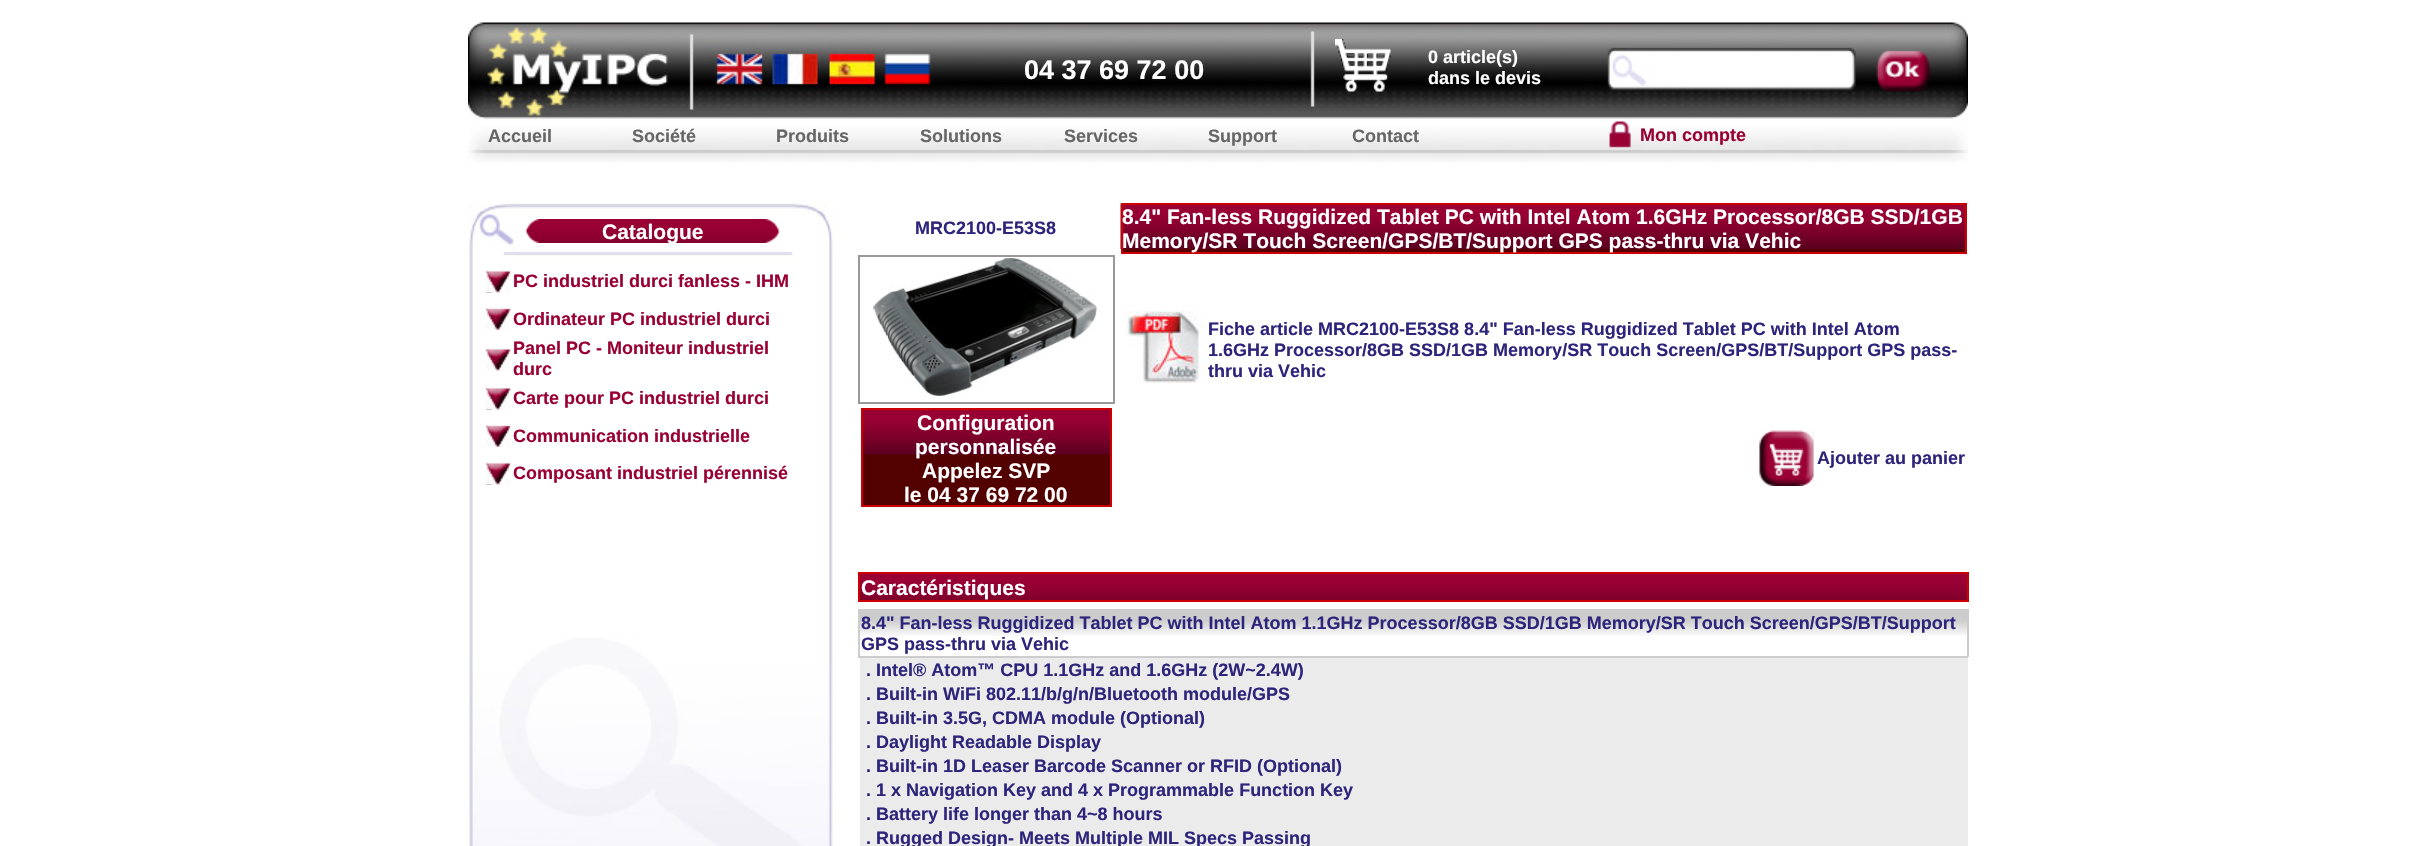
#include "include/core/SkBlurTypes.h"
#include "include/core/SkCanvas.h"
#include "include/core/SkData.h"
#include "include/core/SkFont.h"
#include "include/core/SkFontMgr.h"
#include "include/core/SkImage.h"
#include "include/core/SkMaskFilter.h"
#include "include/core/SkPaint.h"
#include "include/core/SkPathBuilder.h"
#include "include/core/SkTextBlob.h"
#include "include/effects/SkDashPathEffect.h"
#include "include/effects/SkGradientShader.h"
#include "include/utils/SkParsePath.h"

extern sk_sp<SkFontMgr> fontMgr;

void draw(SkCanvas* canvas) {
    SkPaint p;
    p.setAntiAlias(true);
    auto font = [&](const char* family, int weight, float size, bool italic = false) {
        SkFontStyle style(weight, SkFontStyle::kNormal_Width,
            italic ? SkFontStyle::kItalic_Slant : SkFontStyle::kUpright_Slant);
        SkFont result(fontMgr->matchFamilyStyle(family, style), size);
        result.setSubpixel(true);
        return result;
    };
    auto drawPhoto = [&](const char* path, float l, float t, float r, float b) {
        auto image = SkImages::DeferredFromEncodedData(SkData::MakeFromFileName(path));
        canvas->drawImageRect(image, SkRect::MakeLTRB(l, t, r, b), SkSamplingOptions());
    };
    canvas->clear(0xFFFFFFFF);
    drawPhoto("media/1.png", 468, 22, 1968, 846);
    auto font1 = font("Liberation Sans", 700, 27);
    p.setColor(0xFFFFFFFF);
    canvas->drawString("04 37 69 72 00", 1024, 79, font1, p);
    drawPhoto("media/2.png", 1335, 39, 1391, 92);
    auto font2 = font("Liberation Sans", 700, 18);
    canvas->drawString("0 article(s)", 1428, 63, font2, p);
    canvas->drawString("dans le devis", 1428, 84, font2, p);
    p.setColor(0xFF666666);
    {
        const struct { const char* s; float x, y; } items[] = {
            {"Accueil", 488, 142},
            {"Société", 632, 142},
            {"Produits", 776, 142},
            {"Solutions", 920, 142},
            {"Services", 1064, 142},
            {"Support", 1208, 142},
            {"Contact", 1352, 142},
        };
        for (auto [s, x, y] : items) {
            canvas->drawString(s, x, y, font2, p);
        }
    }
    p.setColor(0xFF990033);
    canvas->drawString("Mon compte", 1640, 141, font2, p);
    drawPhoto("media/3.png", 525, 219, 780, 243);
    drawPhoto("media/4.png", 525, 219, 540, 234);
    drawPhoto("media/5.png", 765, 219, 780, 234);
    drawPhoto("media/6.png", 525, 229, 540, 243);
    drawPhoto("media/7.png", 765, 229, 780, 243);
    auto font3 = font("Liberation Sans", 700, 21);
    p.setColor(0xFFFFFFFF);
    canvas->drawString("Catalogue", 602, 239, font3, p);
    p.setColor(0xFF2C257B);
    canvas->drawString("MRC2100-E53S8", 915, 234, font2, p);
    p.setColor(0xFF520000);
    canvas->drawRect(SkRect::MakeLTRB(1123, 249, 1965, 252), p);
    drawPhoto("media/8.png", 1120, 204, 1965, 249);
    p.setStyle(SkPaint::kStroke_Style);
    p.setStrokeWidth(2);
    p.setColor(0xFFCC0000);
    canvas->drawRect(SkRect::MakeLTRB(1122, 204, 1966, 253), p);
    p.setStyle(SkPaint::kFill_Style);
    p.setColor(0xFFFFFFFF);
    canvas->drawString("8.4\" Fan-less Ruggidized Tablet PC with Intel Atom 1.6GHz Processor/8GB SSD/1GB", 1122, 224, font3, p);
    canvas->drawString("Memory/SR Touch Screen/GPS/BT/Support GPS pass-thru via Vehic", 1122, 248, font3, p);
    {
        const struct { float l, t, r, b; SkColor color; } items[] = {
            {858, 255, 1115, 257, 0xFF999999},
            {1113, 255, 1115, 404, 0xFF999999},
            {858, 402, 1115, 404, 0xFF999999},
            {858, 255, 860, 404, 0xFF999999},
        };
        for (auto [l, t, r, b, color] : items) {
            p.setColor(color);
            canvas->drawRect(SkRect::MakeLTRB(l, t, r, b), p);
        }
    }
    drawPhoto("media/9.png", 873, 258, 1097, 396);
    drawPhoto("media/10.png", 1123, 310, 1206, 383);
    p.setColor(0xFF2C257B);
    {
        const struct { const char* s; float x, y; } items[] = {
            {"Fiche article MRC2100-E53S8 8.4\" Fan-less Ruggidized Tablet PC with Intel Atom", 1208, 335},
            {"1.6GHz Processor/8GB SSD/1GB Memory/SR Touch Screen/GPS/BT/Support GPS pass-", 1208, 356},
            {"thru via Vehic", 1208, 377},
        };
        for (auto [s, x, y] : items) {
            canvas->drawString(s, x, y, font2, p);
        }
    }
    p.setColor(0xFF520000);
    canvas->drawRect(SkRect::MakeLTRB(863, 454, 1110, 505), p);
    drawPhoto("media/11.png", 863, 410, 1110, 455);
    p.setStyle(SkPaint::kStroke_Style);
    p.setColor(0xFFCC0000);
    canvas->drawRect(SkRect::MakeLTRB(862, 409, 1111, 506), p);
    p.setStyle(SkPaint::kFill_Style);
    p.setColor(0xFFFFFFFF);
    {
        const struct { const char* s; float x, y; } items[] = {
            {"Configuration", 917, 430},
            {"personnalisée", 915, 454},
            {"Appelez SVP", 922, 478},
            {"le 04 37 69 72 00", 904, 502},
        };
        for (auto [s, x, y] : items) {
            canvas->drawString(s, x, y, font3, p);
        }
    }
    p.setColor(0xFFEFEFEF);
    canvas->drawRect(SkRect::MakeLTRB(1813, 431, 1814, 486), p);
    drawPhoto("media/12.png", 1759, 430, 1814, 486);
    p.setColor(0xFF2C257B);
    canvas->drawString("Ajouter au panier", 1817, 464, font2, p);
    drawPhoto("media/13.png", 860, 574, 1967, 600);
    {
        const struct { float l, t, r, b; SkColor color; } items[] = {
            {858, 572, 1968, 574, 0xFFCC0000},
            {1967, 572, 1969, 602, 0xFFCC0000},
            {858, 600, 1968, 602, 0xFFCC0000},
            {858, 572, 860, 602, 0xFFCC0000},
        };
        for (auto [l, t, r, b, color] : items) {
            p.setColor(color);
            canvas->drawRect(SkRect::MakeLTRB(l, t, r, b), p);
        }
    }
    p.setColor(0xFFFFFFFF);
    canvas->drawString("Caractéristiques", 861, 595, font3, p);
    drawPhoto("media/14.png", 860, 611, 1967, 636);
    {
        const struct { float l, t, r, b; SkColor color; } items[] = {
            {858, 609, 1968, 611, 0xFFCCCCCC},
            {1967, 609, 1969, 657, 0xFFCCCCCC},
            {858, 656, 1968, 658, 0xFFCCCCCC},
            {858, 609, 860, 657, 0xFFCCCCCC},
        };
        for (auto [l, t, r, b, color] : items) {
            p.setColor(color);
            canvas->drawRect(SkRect::MakeLTRB(l, t, r, b), p);
        }
    }
    p.setColor(0xFF2C257B);
    canvas->drawString("8.4\" Fan-less Ruggidized Tablet PC with Intel Atom 1.1GHz Processor/8GB SSD/1GB Memory/SR Touch Screen/GPS/BT/Support", 861, 629, font2, p);
    canvas->drawString("GPS pass-thru via Vehic", 861, 650, font2, p);
    p.setColor(0xFFEBEBEB);
    canvas->drawRect(SkRect::MakeLTRB(860, 658, 1968, 846), p);
    p.setColor(0xFF2C257B);
    {
        const struct { const char* s; float x, y; } items[] = {
            {". Intel® Atom™ CPU 1.1GHz and 1.6GHz (2W~2.4W)", 866, 676},
            {". Built-in WiFi 802.11/b/g/n/Bluetooth module/GPS", 866, 700},
            {". Built-in 3.5G, CDMA module (Optional)", 866, 724},
            {". Daylight Readable Display", 866, 748},
            {". Built-in 1D Leaser Barcode Scanner or RFID (Optional)", 866, 772},
            {". 1 x Navigation Key and 4 x Programmable Function Key", 866, 796},
            {". Battery life longer than 4~8 hours", 866, 820},
            {". Rugged Design- Meets Multiple MIL Specs Passing", 866, 844},
        };
        for (auto [s, x, y] : items) {
            canvas->drawString(s, x, y, font2, p);
        }
    }
    drawPhoto("media/15.png", 486, 270, 511, 293);
    p.setColor(0xFF990033);
    canvas->drawString("PC industriel durci fanless - IHM", 513, 287, font2, p);
    drawPhoto("media/16.png", 486, 307, 511, 330);
    canvas->drawString("Ordinateur PC industriel durci", 513, 325, font2, p);
    drawPhoto("media/17.png", 486, 348, 511, 371);
    canvas->drawString("Panel PC - Moniteur industriel", 513, 354, font2, p);
    canvas->drawString("durc", 513, 375, font2, p);
    drawPhoto("media/15.png", 486, 387, 511, 410);
    canvas->drawString("Carte pour PC industriel durci", 513, 404, font2, p);
    drawPhoto("media/16.png", 486, 424, 511, 447);
    canvas->drawString("Communication industrielle", 513, 442, font2, p);
    drawPhoto("media/15.png", 486, 462, 511, 485);
    canvas->drawString("Composant industriel pérennisé", 513, 479, font2, p);
}
